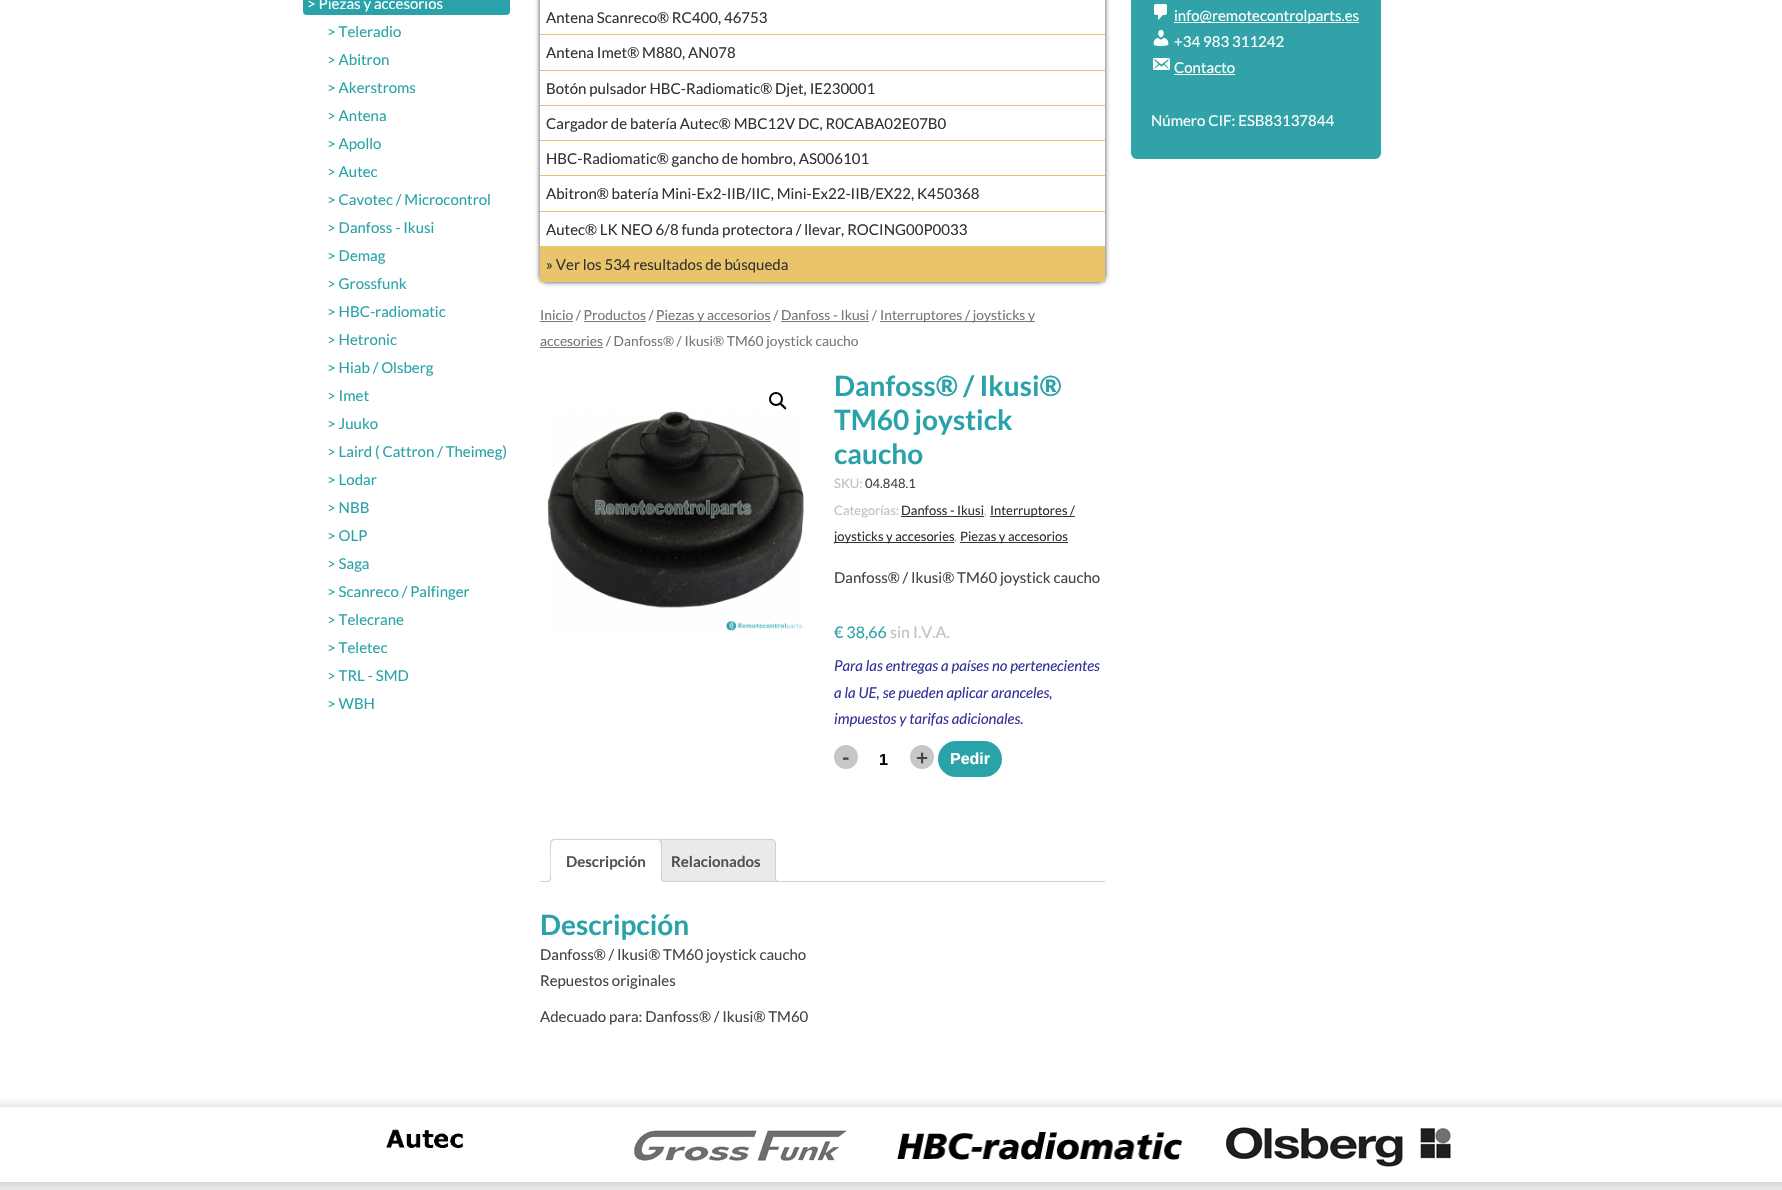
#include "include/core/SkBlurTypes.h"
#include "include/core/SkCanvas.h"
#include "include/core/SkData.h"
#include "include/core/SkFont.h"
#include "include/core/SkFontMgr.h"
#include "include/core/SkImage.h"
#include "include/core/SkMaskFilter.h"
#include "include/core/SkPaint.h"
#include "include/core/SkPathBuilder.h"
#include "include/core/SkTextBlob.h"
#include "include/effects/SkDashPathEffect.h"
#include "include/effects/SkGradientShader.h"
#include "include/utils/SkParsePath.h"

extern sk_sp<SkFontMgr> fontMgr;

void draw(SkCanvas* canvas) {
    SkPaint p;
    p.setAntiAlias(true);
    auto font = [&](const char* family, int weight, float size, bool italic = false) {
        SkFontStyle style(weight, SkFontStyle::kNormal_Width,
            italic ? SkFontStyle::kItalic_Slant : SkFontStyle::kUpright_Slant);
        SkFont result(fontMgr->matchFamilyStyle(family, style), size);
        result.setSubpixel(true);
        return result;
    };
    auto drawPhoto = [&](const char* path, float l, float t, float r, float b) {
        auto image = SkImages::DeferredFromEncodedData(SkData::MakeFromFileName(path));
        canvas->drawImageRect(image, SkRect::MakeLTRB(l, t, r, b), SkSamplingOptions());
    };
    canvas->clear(0xFFFFFFFF);
    p.setColor(0xFF29A3A9);
    canvas->drawRoundRect(SkRect::MakeLTRB(303, -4, 510, 15), 4, 4, p);
    auto font1 = font("Lato", 400, 15);
    p.setColor(0xFFFFFFFF);
    canvas->drawString("> Piezas y accesorios", 307, 9, font1, p);
    p.setColor(0xFF29A3A9);
    {
        const struct { const char* s; float x, y; } items[] = {
            {"> Teleradio", 327, 37},
            {"> Abitron", 327, 65},
            {"> Akerstroms", 327, 93},
            {"> Antena", 327, 121},
            {"> Apollo", 327, 149},
            {"> Autec", 327, 177},
            {"> Cavotec / Microcontrol", 327, 205},
            {"> Danfoss - Ikusi", 327, 233},
            {"> Demag", 327, 261},
            {"> Grossfunk", 327, 289},
            {"> HBC-radiomatic", 327, 317},
            {"> Hetronic", 327, 345},
            {"> Hiab / Olsberg", 327, 373},
            {"> Imet", 327, 401},
            {"> Juuko", 327, 429},
            {"> Laird ( Cattron / Theimeg)", 327, 457},
            {"> Lodar", 327, 485},
            {"> NBB", 327, 513},
            {"> OLP", 327, 541},
            {"> Saga", 327, 569},
            {"> Scanreco / Palfinger", 327, 597},
            {"> Telecrane", 327, 625},
            {"> Teletec", 327, 653},
            {"> TRL - SMD", 327, 681},
            {"> WBH", 327, 709},
        };
        for (auto [s, x, y] : items) {
            canvas->drawString(s, x, y, font1, p);
        }
    }
    p.setColor(0xBF000000);
    p.setMaskFilter(SkMaskFilter::MakeBlur(kNormal_SkBlurStyle, 2.5f));
    canvas->drawRoundRect(SkRect::MakeLTRB(540, -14, 1105, 282), 6, 6, p);
    p.setMaskFilter(nullptr);
    p.setColor(0xFFFFFFFF);
    canvas->drawRect(SkRect::MakeLTRB(540, 0, 1105, 246), p);
    p.setColor(0xFFE9C46A);
    canvas->drawRect(SkRect::MakeLTRB(540, 34, 1105, 35), p);
    p.setColor(0xFF333333);
    canvas->drawString("Antena Scanreco® RC400, 46753", 546, 23, font1, p);
    p.setColor(0xFFE9C46A);
    canvas->drawRect(SkRect::MakeLTRB(540, 70, 1105, 71), p);
    p.setColor(0xFF333333);
    canvas->drawString("Antena Imet® M880, AN078", 546, 58, font1, p);
    p.setColor(0xFFE9C46A);
    canvas->drawRect(SkRect::MakeLTRB(540, 105, 1105, 106), p);
    p.setColor(0xFF333333);
    canvas->drawString("Botón pulsador HBC-Radiomatic® Djet, IE230001", 546, 94, font1, p);
    p.setColor(0xFFE9C46A);
    canvas->drawRect(SkRect::MakeLTRB(540, 140, 1105, 141), p);
    p.setColor(0xFF333333);
    canvas->drawString("Cargador de batería Autec® MBC12V DC, R0CABA02E07B0", 546, 129, font1, p);
    p.setColor(0xFFE9C46A);
    canvas->drawRect(SkRect::MakeLTRB(540, 175, 1105, 176), p);
    p.setColor(0xFF333333);
    canvas->drawString("HBC-Radiomatic® gancho de hombro, AS006101", 546, 164, font1, p);
    p.setColor(0xFFE9C46A);
    canvas->drawRect(SkRect::MakeLTRB(540, 211, 1105, 212), p);
    p.setColor(0xFF333333);
    canvas->drawString("Abitron® batería Mini-Ex2-IIB/IIC, Mini-Ex22-IIB/EX22, K450368", 546, 199, font1, p);
    p.setColor(0xFFE9C46A);
    canvas->drawRect(SkRect::MakeLTRB(540, 246, 1105, 282), p);
    p.setColor(0xFF333333);
    canvas->drawString("Autec® LK NEO 6/8 funda protectora / llevar, ROCING00P0033", 546, 235, font1, p);
    canvas->drawString("» Ver los 534 resultados de búsqueda", 546, 270, font1, p);
    auto font2 = font("Lato", 400, 13.8f);
    p.setColor(0xFF767676);
    canvas->drawString("Inicio / Productos /", 540, 320, font2, p);
    canvas->drawRect(SkRect::MakeLTRB(540, 321, 573, 322), p);
    canvas->drawRect(SkRect::MakeLTRB(656, 321, 771, 322), p);
    canvas->drawString("Piezas y accesorios / Danfoss - Ikusi /", 656, 320, font2, p);
    canvas->drawRect(SkRect::MakeLTRB(880, 321, 1035, 322), p);
    canvas->drawString("Interruptores / joysticks y", 880, 320, font2, p);
    {
        const struct { float l, t, r, b; SkColor color; } items[] = {
            {584, 321, 646, 322, 0xFF767676},
            {781, 321, 869, 322, 0xFF767676},
            {540, 347, 603, 348, 0xFF767676},
        };
        for (auto [l, t, r, b, color] : items) {
            p.setColor(color);
            canvas->drawRect(SkRect::MakeLTRB(l, t, r, b), p);
        }
    }
    canvas->drawString("accesories / Danfoss® / Ikusi® TM60 joystick caucho", 540, 346, font2, p);
    p.setStyle(SkPaint::kStroke_Style);
    p.setStrokeWidth(2);
    p.setColor(0xFF000000);
    canvas->drawCircle(776, 399, 6, p);
    p.setStyle(SkPaint::kFill_Style);
    canvas->drawPath(SkPathBuilder().moveTo(780.5f, 403.5f).cubicTo(781.5f, 402.5f, 783.5f, 405, 784, 405.5f).cubicTo(784.5f, 406, 787, 408, 786, 409).cubicTo(785, 410.5f, 783, 407.5f, 782.5f, 407).cubicTo(782, 406.5f, 779, 404.5f, 780.5f, 403.5f).close().detach(), p);
    drawPhoto("media/1.png", 547, 411, 804, 631);
    auto font3 = font("Lato", 700, 28);
    p.setColor(0xFF29A3A9);
    {
        const struct { const char* s; float x, y; } items[] = {
            {"Danfoss® / Ikusi®", 834, 396},
            {"TM60 joystick", 834, 430},
            {"caucho", 834, 464},
        };
        for (auto [s, x, y] : items) {
            canvas->drawString(s, x, y, font3, p);
        }
    }
    auto font4 = font("Lato", 400, 13);
    p.setColor(0xFFC1C1C1);
    canvas->drawString("SKU:", 834, 488, font4, p);
    p.setColor(0xFF444444);
    canvas->drawString("04.848.1", 865, 488, font4, p);
    p.setColor(0xFFC1C1C1);
    canvas->drawString("Categorías:", 834, 515, font4, p);
    p.setColor(0xFF333333);
    canvas->drawString("Danfoss - Ikusi", 901, 515, font4, p);
    canvas->drawRect(SkRect::MakeLTRB(901, 516, 984, 517), p);
    p.setColor(0xFFC1C1C1);
    canvas->drawString(",", 984, 515, font4, p);
    p.setColor(0xFF333333);
    canvas->drawRect(SkRect::MakeLTRB(990, 516, 1075, 517), p);
    canvas->drawString("Interruptores /", 990, 515, font4, p);
    canvas->drawRect(SkRect::MakeLTRB(834, 542, 954, 543), p);
    canvas->drawString("joysticks y accesories", 834, 541, font4, p);
    p.setColor(0xFFC1C1C1);
    canvas->drawString(",", 954, 541, font4, p);
    p.setColor(0xFF333333);
    canvas->drawRect(SkRect::MakeLTRB(960, 542, 1068, 543), p);
    canvas->drawString("Piezas y accesorios", 960, 541, font4, p);
    p.setColor(0xFF444444);
    canvas->drawString("Danfoss® / Ikusi® TM60 joystick caucho", 834, 583, font1, p);
    auto font5 = font("Lato", 400, 16);
    p.setColor(0xFF29A3A9);
    canvas->drawString("€ 38,66", 834, 638, font5, p);
    p.setColor(0xFFC1C1C1);
    canvas->drawString("sin I.V.A.", 890, 638, font5, p);
    auto font6 = font("Lato", 400, 15, true);
    p.setColor(0xFF333399);
    {
        const struct { const char* s; float x, y; } items[] = {
            {"Para las entregas a países no pertenecientes", 834, 671},
            {"a la UE, se pueden aplicar aranceles,", 834, 698},
            {"impuestos y tarifas adicionales.", 834, 724},
        };
        for (auto [s, x, y] : items) {
            canvas->drawString(s, x, y, font6, p);
        }
    }
    p.setColor(0xFFC7C7C7);
    canvas->drawCircle(846, 757, 12, p);
    auto font7 = font("Lato", 700, 21);
    p.setColor(0xFF444444);
    canvas->drawString("-", 842, 765, font7, p);
    auto font8 = font("Liberation Sans", 700, 16);
    p.setColor(0xFF000000);
    canvas->drawString("1", 879, 765, font8, p);
    p.setColor(0xFFC7C7C7);
    canvas->drawCircle(922, 757, 12, p);
    p.setColor(0xFF444444);
    canvas->drawString("+", 916, 765, font7, p);
    p.setColor(0xFF29A3A9);
    canvas->drawRoundRect(SkRect::MakeLTRB(938, 741, 1002, 777), 18, 18, p);
    p.setColor(0xFFFFFFFF);
    canvas->drawString("Pedir", 950, 764, font8, p);
    p.setColor(0xFFEBE9EB);
    canvas->drawPath(SkPathBuilder().moveTo(659, 839.5f).lineTo(772, 839.5f).cubicTo(774, 839.5f, 775.5f, 841, 775.5f, 843).lineTo(775.5f, 881.5f).lineTo(655.5f, 881.5f).lineTo(655.5f, 843).cubicTo(655.5f, 841, 657, 839.5f, 659, 839.5f).close().detach(), p);
    p.setStyle(SkPaint::kStroke_Style);
    p.setStrokeWidth(1);
    p.setColor(0xFFD3CED2);
    canvas->drawPath(SkPathBuilder().moveTo(659, 839.5f).lineTo(772, 839.5f).cubicTo(774, 839.5f, 775.5f, 841, 775.5f, 843).lineTo(775.5f, 881.5f).lineTo(655.5f, 881.5f).lineTo(655.5f, 843).cubicTo(655.5f, 841, 657, 839.5f, 659, 839.5f).close().detach(), p);
    canvas->save();
    canvas->clipRect(SkRect::MakeLTRB(540, 839, 1105, 882));
    p.setStyle(SkPaint::kFill_Style);
    p.setColor(0xFFEBE9EB);
    canvas->drawPath(SkPathBuilder().moveTo(773, 879).cubicTo(773, 882.5f, 774.5f, 884, 778, 884).lineTo(778, 882).cubicTo(776.5f, 881.5f, 775.5f, 880.5f, 775, 879).close().detach(), p);
    canvas->restore();
    p.setColor(0xFFD3CED2);
    canvas->drawPath(SkPathBuilder(SkPathFillType::kEvenOdd).moveTo(775, 877).lineTo(780, 877).lineTo(780, 882).cubicTo(777.5f, 882, 775, 881, 775, 878).close().moveTo(776, 877).lineTo(780, 877).lineTo(780, 881).cubicTo(778, 881, 776, 880.5f, 776, 878).close().detach(), p);
    canvas->drawRect(SkRect::MakeLTRB(540, 881, 1105, 882), p);
    p.setColor(0xFFFFFFFF);
    canvas->drawPath(SkPathBuilder().moveTo(554, 839).lineTo(658, 839).cubicTo(660, 839, 662, 841, 662, 843).lineTo(662, 882).lineTo(550, 882).lineTo(550, 843).cubicTo(550, 841, 552, 839, 554, 839).close().detach(), p);
    p.setColor(0xFFD3CED2);
    canvas->drawPath(SkPathBuilder().moveTo(554, 839).lineTo(551, 840).lineTo(552, 841).lineTo(554, 840).lineTo(658, 840).lineTo(660, 841).lineTo(661, 840).lineTo(658, 839).close().detach(), p);
    canvas->drawPath(SkPathBuilder().moveTo(662, 882).lineTo(662, 843).cubicTo(662, 842, 662, 841, 661, 840).lineTo(660, 841).cubicTo(662, 843, 661, 876, 661, 881).close().detach(), p);
    p.setColor(0xFFFFFFFF);
    canvas->drawPath(SkPathBuilder().moveTo(662, 882).lineTo(661, 881).lineTo(551, 881).lineTo(550, 882).close().detach(), p);
    p.setColor(0xFFD3CED2);
    canvas->drawPath(SkPathBuilder().moveTo(550, 882).lineTo(551, 881).cubicTo(551, 876, 550, 843, 552, 841).lineTo(551, 840).lineTo(550, 843).close().detach(), p);
    auto font9 = font("Lato", 700, 15);
    p.setColor(0xFF515151);
    canvas->drawString("Descripción", 566, 867, font9, p);
    canvas->save();
    canvas->clipRect(SkRect::MakeLTRB(540, 839, 1105, 882));
    p.setColor(0xFFFFFFFF);
    canvas->drawPath(SkPathBuilder().moveTo(548, 882).lineTo(548, 884).cubicTo(551.5f, 884, 553, 882.5f, 553, 879).lineTo(551, 879).cubicTo(550.5f, 880.5f, 549.5f, 881.5f, 548, 882).close().detach(), p);
    canvas->restore();
    p.setColor(0xFFD3CED2);
    canvas->drawPath(SkPathBuilder(SkPathFillType::kEvenOdd).moveTo(546, 877).lineTo(551, 877).cubicTo(551, 880.5f, 549.5f, 882, 546, 882).close().moveTo(546, 877).lineTo(550, 877).cubicTo(550, 880, 549, 881, 546, 881).close().detach(), p);
    canvas->save();
    canvas->clipRect(SkRect::MakeLTRB(540, 839, 1105, 882));
    p.setColor(0xFFFFFFFF);
    canvas->drawPath(SkPathBuilder().moveTo(659, 879).cubicTo(659, 882.5f, 660.5f, 884, 664, 884).lineTo(664, 882).cubicTo(662.5f, 881.5f, 661.5f, 880.5f, 661, 879).close().detach(), p);
    canvas->restore();
    p.setColor(0xFFD3CED2);
    canvas->drawPath(SkPathBuilder(SkPathFillType::kEvenOdd).moveTo(661, 877).lineTo(666, 877).lineTo(666, 882).cubicTo(663.5f, 882, 661, 881, 661, 878).close().moveTo(662, 877).lineTo(666, 877).lineTo(666, 881).cubicTo(664, 881, 662, 880.5f, 662, 878).close().detach(), p);
    p.setColor(0xFF515151);
    canvas->drawString("Relacionados", 671, 867, font9, p);
    p.setColor(0xFF29A3A9);
    canvas->drawString("Descripción", 540, 935, font3, p);
    p.setColor(0xFF444444);
    {
        const struct { const char* s; float x, y; } items[] = {
            {"Danfoss® / Ikusi® TM60 joystick caucho", 540, 960},
            {"Repuestos originales", 540, 986},
            {"Adecuado para: Danfoss® / Ikusi® TM60", 540, 1022},
        };
        for (auto [s, x, y] : items) {
            canvas->drawString(s, x, y, font1, p);
        }
    }
    p.setColor(0xFF31A3A8);
    canvas->drawRoundRect(SkRect::MakeLTRB(1131, -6, 1381, 159), 6, 6, p);
    drawPhoto("media/2.png", 1154, 4, 1167, 20);
    p.setColor(0xFFFFFFFF);
    canvas->drawRect(SkRect::MakeLTRB(1174, 22, 1359, 23), p);
    canvas->drawString("info@remotecontrolparts.es", 1174, 21, font1, p);
    drawPhoto("media/3.png", 1153, 30, 1169, 47);
    canvas->drawString("+34 983 311242", 1174, 47, font1, p);
    drawPhoto("media/4.png", 1153, 58, 1170, 70);
    canvas->drawString("Contacto", 1174, 73, font1, p);
    canvas->drawRect(SkRect::MakeLTRB(1174, 74, 1235, 75), p);
    canvas->drawString("Número CIF: ESB83137844", 1151, 126, font1, p);
    drawPhoto("media/5.png", 0, 1099, 1782, 1190);
    drawPhoto("media/6.png", 386, 1129, 464, 1148);
    drawPhoto("media/7.png", 634, 1130, 847, 1161);
    drawPhoto("media/8.png", 897, 1132, 1183, 1160);
    drawPhoto("media/9.png", 1226, 1127, 1451, 1167);
}
